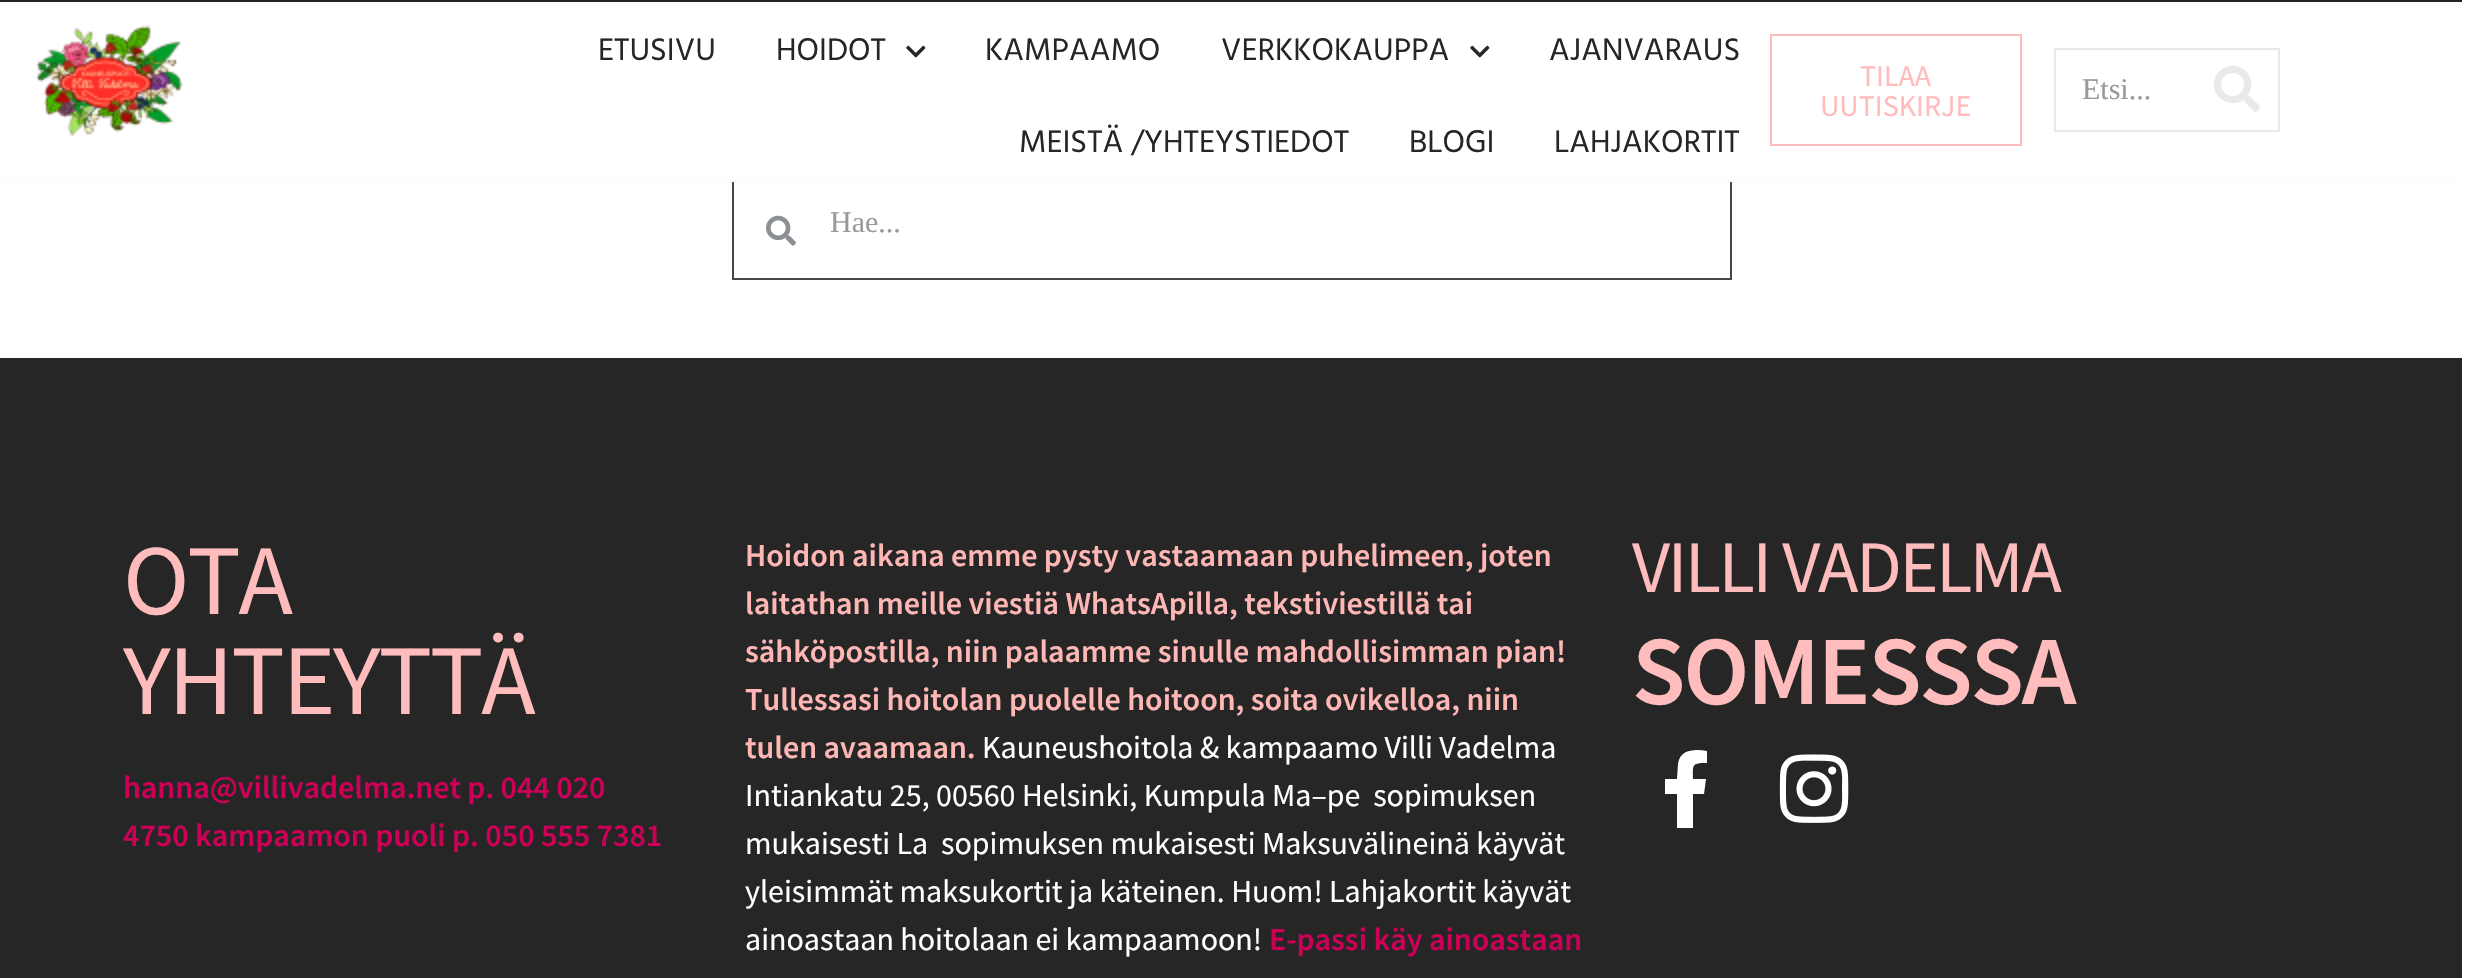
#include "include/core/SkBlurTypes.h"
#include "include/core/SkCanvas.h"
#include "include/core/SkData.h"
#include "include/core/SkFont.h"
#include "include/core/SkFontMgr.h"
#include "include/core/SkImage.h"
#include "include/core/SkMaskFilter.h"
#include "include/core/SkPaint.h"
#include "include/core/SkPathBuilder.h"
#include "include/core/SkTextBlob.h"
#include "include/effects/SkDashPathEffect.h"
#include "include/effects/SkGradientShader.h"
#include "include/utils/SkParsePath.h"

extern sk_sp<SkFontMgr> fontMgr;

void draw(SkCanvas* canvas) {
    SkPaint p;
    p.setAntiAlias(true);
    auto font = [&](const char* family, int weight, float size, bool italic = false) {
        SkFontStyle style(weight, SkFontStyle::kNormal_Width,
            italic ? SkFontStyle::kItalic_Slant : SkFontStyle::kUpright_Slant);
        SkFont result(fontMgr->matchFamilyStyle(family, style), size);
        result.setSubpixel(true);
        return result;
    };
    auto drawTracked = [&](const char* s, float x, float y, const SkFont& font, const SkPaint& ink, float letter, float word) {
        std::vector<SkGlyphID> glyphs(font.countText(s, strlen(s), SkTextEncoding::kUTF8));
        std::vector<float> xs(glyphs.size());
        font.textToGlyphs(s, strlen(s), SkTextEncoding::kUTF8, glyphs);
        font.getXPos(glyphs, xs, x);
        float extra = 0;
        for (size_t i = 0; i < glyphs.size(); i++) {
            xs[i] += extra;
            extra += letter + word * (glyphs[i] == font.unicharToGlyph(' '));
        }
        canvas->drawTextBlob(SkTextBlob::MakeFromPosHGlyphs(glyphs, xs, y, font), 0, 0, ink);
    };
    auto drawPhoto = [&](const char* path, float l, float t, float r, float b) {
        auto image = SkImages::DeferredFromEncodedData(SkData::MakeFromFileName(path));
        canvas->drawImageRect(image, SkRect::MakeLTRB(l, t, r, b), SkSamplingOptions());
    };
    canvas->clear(0xFFFFFFFF);
    p.setColor(0xFF222222);
    canvas->drawRect(SkRect::MakeLTRB(0, 0, 2462, 2), p);
    p.setStyle(SkPaint::kStroke_Style);
    p.setStrokeWidth(2);
    p.setColor(0xFF474747);
    canvas->drawRect(SkRect::MakeLTRB(733, 181, 1731, 279), p);
    p.setStyle(SkPaint::kFill_Style);
    p.setColor(0xFFFCFCFC);
    canvas->drawRect(SkRect::MakeLTRB(0, 180, 2462, 182), p);
    drawPhoto("media/1.png", 35, 25, 183, 137);
    auto font1 = font("Hind", 400, 32);
    p.setColor(0xFF262626);
    canvas->drawString("ETUSIVU", 598, 60, font1, p);
    canvas->drawString("HOIDOT", 776, 60, font1, p);
    drawPhoto("media/2.png", 906, 45, 926, 58);
    canvas->drawString("KAMPAAMO", 985, 60, font1, p);
    canvas->drawString("VERKKOKAUPPA", 1221, 60, font1, p);
    drawPhoto("media/2.png", 1470, 45, 1490, 58);
    {
        const struct { const char* s; float x, y; } items[] = {
            {"AJANVARAUS", 1549, 60},
            {"MEISTÄ /YHTEYSTIEDOT", 1019, 152},
            {"BLOGI", 1409, 152},
            {"LAHJAKORTIT", 1554, 152},
        };
        for (auto [s, x, y] : items) {
            canvas->drawString(s, x, y, font1, p);
        }
    }
    p.setStyle(SkPaint::kStroke_Style);
    p.setColor(0xFFFFBCBC);
    canvas->drawRect(SkRect::MakeLTRB(1771, 35, 2021, 145), p);
    auto font2 = font("Source Sans Pro", 400, 30);
    p.setStyle(SkPaint::kFill_Style);
    canvas->drawString("TILAA", 1860, 86, font2, p);
    canvas->drawString("UUTISKIRJE", 1820, 116, font2, p);
    p.setStyle(SkPaint::kStroke_Style);
    p.setColor(0xFFE9E9E9);
    canvas->drawRect(SkRect::MakeLTRB(2055, 49, 2279, 131), p);
    auto font3 = font("Liberation Serif", 400, 30);
    p.setStyle(SkPaint::kFill_Style);
    p.setColor(0xFF999999);
    canvas->drawString("Etsi...", 2082, 99, font3, p);
    drawPhoto("media/3.png", 2214, 65, 2260, 112);
    drawPhoto("media/4.png", 766, 215, 796, 246);
    canvas->drawString("Hae...", 830, 232, font3, p);
    p.setColor(0xFF262626);
    canvas->drawRect(SkRect::MakeLTRB(0, 358, 2462, 978), p);
    auto font4 = font("Source Sans Pro", 400, 100);
    p.setColor(0xFFFFBCBC);
    drawTracked("OTA", 123, 614, font4, p, -2.25f, 0);
    drawTracked("YHTEYTTÄ", 123, 714, font4, p, -2.25f, 0);
    auto font5 = font("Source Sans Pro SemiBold", 600, 32);
    p.setColor(0xFFCC0056);
    canvas->drawString("hanna@villivadelma.net p. 044 020", 123, 798, font5, p);
    canvas->drawString("4750 kampaamon puoli p. 050 555 7381", 123, 846, font5, p);
    p.setColor(0xFFFFB7B5);
    {
        const struct { const char* s; float x, y; } items[] = {
            {"Hoidon aikana emme pysty vastaamaan puhelimeen, joten", 745, 566},
            {"laitathan meille viestiä WhatsApilla, tekstiviestillä tai", 745, 614},
            {"sähköpostilla, niin palaamme sinulle mahdollisimman pian!", 745, 662},
            {"Tullessasi hoitolan puolelle hoitoon, soita ovikelloa, niin", 745, 710},
            {"tulen avaamaan.", 745, 758},
        };
        for (auto [s, x, y] : items) {
            canvas->drawString(s, x, y, font5, p);
        }
    }
    auto font6 = font("Source Sans Pro", 400, 32);
    p.setColor(0xFFFFFFFF);
    {
        const struct { const char* s; float x, y; } items[] = {
            {"Kauneushoitola & kampaamo Villi Vadelma", 982, 758},
            {"Intiankatu 25, 00560 Helsinki, Kumpula Ma–pe  sopimuksen", 745, 806},
            {"mukaisesti La  sopimuksen mukaisesti Maksuvälineinä käyvät", 745, 854},
            {"yleisimmät maksukortit ja käteinen. Huom! Lahjakortit käyvät", 745, 902},
            {"ainoastaan hoitolaan ei kampaamoon!", 745, 950},
        };
        for (auto [s, x, y] : items) {
            canvas->drawString(s, x, y, font6, p);
        }
    }
    p.setColor(0xFFCC0056);
    canvas->drawString("E-passi käy ainoastaan", 1269, 950, font5, p);
    auto font7 = font("Source Sans Pro", 400, 74);
    p.setColor(0xFFFFBCBC);
    drawTracked("VILLI VADELMA", 1632, 592, font7, p, -2.25f, 0);
    auto font8 = font("Source Sans Pro SemiBold", 600, 98);
    drawTracked("SOMESSSA", 1632, 704, font8, p, -2.25f, 0);
    p.setColor(0xFFFFFFFF);
    canvas->drawPath(SkPathBuilder().moveTo(1704, 794).lineTo(1693, 794).lineTo(1693, 828).lineTo(1677, 828).lineTo(1677, 794).lineTo(1665, 794).lineTo(1665, 779).lineTo(1677, 779).lineTo(1678, 764).cubicTo(1680, 749, 1695, 749, 1707, 751).lineTo(1707, 763).cubicTo(1691, 763, 1693, 765, 1693, 779).lineTo(1706, 779).close().detach(), p);
    drawPhoto("media/5.png", 1779, 754, 1849, 823);
}
